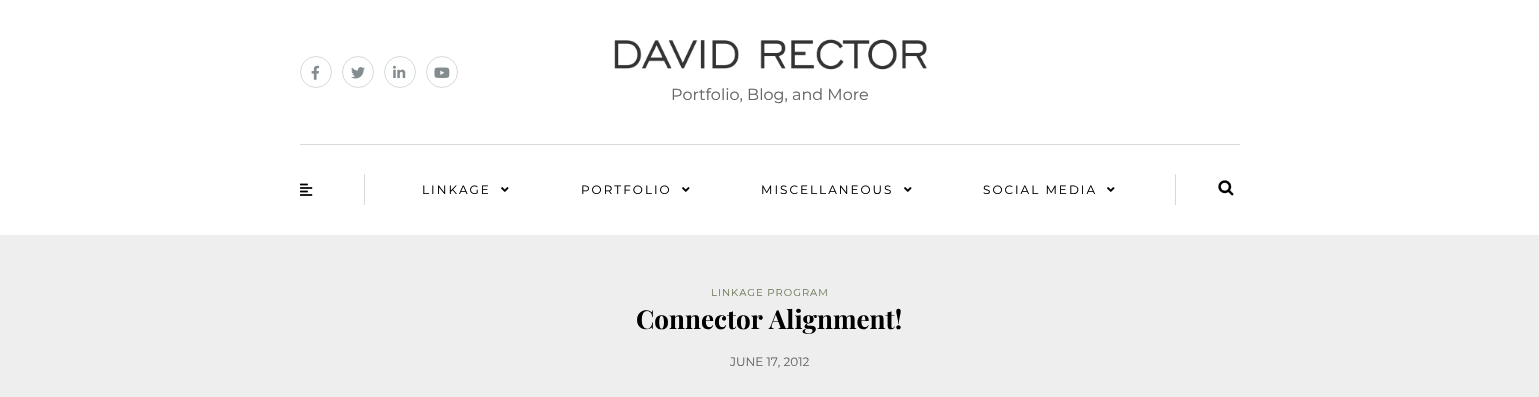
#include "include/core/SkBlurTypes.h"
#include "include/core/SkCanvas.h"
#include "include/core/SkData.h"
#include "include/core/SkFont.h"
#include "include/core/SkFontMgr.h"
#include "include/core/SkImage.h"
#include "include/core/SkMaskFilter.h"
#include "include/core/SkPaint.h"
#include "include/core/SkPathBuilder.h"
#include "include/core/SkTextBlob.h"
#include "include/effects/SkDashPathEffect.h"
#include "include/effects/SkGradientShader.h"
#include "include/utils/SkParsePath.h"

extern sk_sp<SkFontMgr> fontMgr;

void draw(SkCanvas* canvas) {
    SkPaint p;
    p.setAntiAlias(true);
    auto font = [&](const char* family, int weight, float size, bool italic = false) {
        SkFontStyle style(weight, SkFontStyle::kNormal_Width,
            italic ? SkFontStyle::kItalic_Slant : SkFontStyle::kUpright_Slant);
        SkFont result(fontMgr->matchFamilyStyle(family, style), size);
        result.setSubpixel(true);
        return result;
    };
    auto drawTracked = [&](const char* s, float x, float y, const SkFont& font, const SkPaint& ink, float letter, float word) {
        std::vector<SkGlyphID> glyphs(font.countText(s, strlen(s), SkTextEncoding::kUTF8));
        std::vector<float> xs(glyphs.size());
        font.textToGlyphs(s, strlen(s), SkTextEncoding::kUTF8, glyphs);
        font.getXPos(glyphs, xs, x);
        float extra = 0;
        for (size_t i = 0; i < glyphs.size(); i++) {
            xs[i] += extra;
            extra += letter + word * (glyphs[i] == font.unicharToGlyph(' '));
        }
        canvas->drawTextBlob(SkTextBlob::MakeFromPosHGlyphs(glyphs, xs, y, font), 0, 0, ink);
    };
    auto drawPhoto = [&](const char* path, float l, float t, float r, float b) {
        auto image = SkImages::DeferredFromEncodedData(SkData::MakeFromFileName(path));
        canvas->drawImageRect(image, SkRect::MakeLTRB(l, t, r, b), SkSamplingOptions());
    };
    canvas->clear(0xFFFFFFFF);
    p.setStyle(SkPaint::kStroke_Style);
    p.setStrokeWidth(1);
    p.setColor(0xFFD9D9D9);
    canvas->drawCircle(316, 72, 15.5f, p);
    drawPhoto("media/1.png", 311, 65, 320, 80);
    canvas->drawCircle(358, 72, 15.5f, p);
    drawPhoto("media/2.png", 351, 67, 365, 79);
    canvas->drawCircle(400, 72, 15.5f, p);
    drawPhoto("media/3.png", 393, 65, 406, 78);
    canvas->drawCircle(442, 72, 15.5f, p);
    drawPhoto("media/4.png", 434, 67, 450, 78);
    drawPhoto("media/5.png", 614, 39, 927, 70);
    auto font1 = font("Montserrat", 100, 16);
    p.setStyle(SkPaint::kFill_Style);
    p.setColor(0xFF656565);
    canvas->drawString("Portfolio, Blog, and More", 671, 100, font1, p);
    p.setColor(0xFFD9D9D9);
    canvas->drawRect(SkRect::MakeLTRB(364, 174, 365, 205), p);
    drawPhoto("media/6.png", 300, 183, 313, 196);
    canvas->drawRect(SkRect::MakeLTRB(300, 144, 1240, 145), p);
    auto font2 = font("Montserrat", 100, 12);
    p.setColor(0xFF000000);
    drawTracked("LINKAGE", 422, 194, font2, p, 2, 0);
    drawPhoto("media/7.png", 501, 187, 509, 192);
    drawTracked("PORTFOLIO", 581, 194, font2, p, 2, 0);
    drawPhoto("media/7.png", 682, 187, 690, 192);
    drawTracked("MISCELLANEOUS", 761, 194, font2, p, 2, 0);
    drawPhoto("media/7.png", 904, 187, 912, 192);
    drawTracked("SOCIAL MEDIA", 983, 194, font2, p, 2, 0);
    drawPhoto("media/7.png", 1107, 187, 1115, 192);
    p.setColor(0xFFD9D9D9);
    canvas->drawRect(SkRect::MakeLTRB(1175, 174, 1176, 205), p);
    drawPhoto("media/8.png", 1218, 180, 1234, 196);
    p.setColor(0xFFEEEEEE);
    canvas->drawRect(SkRect::MakeLTRB(0, 235, 1539, 397), p);
    auto font3 = font("Montserrat", 100, 10);
    p.setColor(0xFF707C5D);
    drawTracked("LINKAGE PROGRAM", 711, 296, font3, p, 1, 0);
    auto font4 = font("Playfair Display", 700, 26);
    p.setColor(0xFF000000);
    canvas->drawString("Connector Alignment!", 636, 329, font4, p);
    p.setColor(0xFF656565);
    canvas->drawString("JUNE 17, 2012", 730, 366, font2, p);
}
